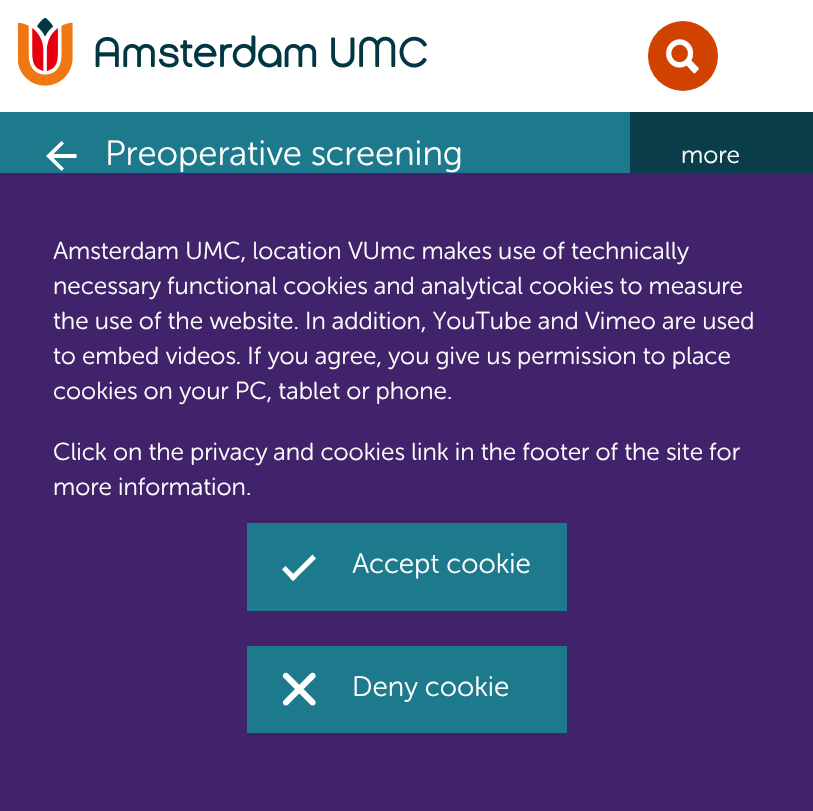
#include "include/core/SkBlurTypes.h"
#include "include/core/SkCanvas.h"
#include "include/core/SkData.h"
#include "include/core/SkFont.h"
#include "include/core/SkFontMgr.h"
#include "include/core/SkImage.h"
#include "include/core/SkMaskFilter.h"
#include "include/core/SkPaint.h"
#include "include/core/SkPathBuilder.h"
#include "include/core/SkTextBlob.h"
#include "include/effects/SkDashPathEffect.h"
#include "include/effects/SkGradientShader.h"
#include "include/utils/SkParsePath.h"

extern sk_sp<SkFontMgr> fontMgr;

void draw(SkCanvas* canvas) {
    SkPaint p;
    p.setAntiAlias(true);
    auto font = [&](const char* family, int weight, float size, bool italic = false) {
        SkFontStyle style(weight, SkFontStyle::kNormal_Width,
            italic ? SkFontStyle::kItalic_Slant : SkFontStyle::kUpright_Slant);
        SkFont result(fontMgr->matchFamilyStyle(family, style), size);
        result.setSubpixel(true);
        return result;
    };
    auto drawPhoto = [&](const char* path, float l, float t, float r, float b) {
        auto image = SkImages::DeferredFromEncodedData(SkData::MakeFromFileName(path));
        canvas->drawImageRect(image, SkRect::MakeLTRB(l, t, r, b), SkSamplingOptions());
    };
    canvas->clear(0xFFFFFFFF);
    drawPhoto("media/1.png", 18, 18, 427, 86);
    p.setColor(0xFFD14200);
    canvas->drawCircle(683, 56, 35, p);
    drawPhoto("media/2.png", 666, 39, 699, 74);
    p.setColor(0xFF1D798C);
    canvas->drawRect(SkRect::MakeLTRB(0, 112, 630, 173), p);
    p.setColor(0xFFFFFFFF);
    canvas->drawPath(SkPathBuilder(SkPathFillType::kEvenOdd).moveTo(76.5f, 154).lineTo(76.5f, 158).lineTo(53.5f, 158).lineTo(64, 168.5f).lineTo(61.5f, 171).lineTo(46, 156).lineTo(61.5f, 141).lineTo(64, 143.5f).lineTo(53.5f, 154).close().detach(), p);
    auto font1 = font("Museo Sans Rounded", 400, 35);
    canvas->drawString("Preoperative screening", 105, 165, font1, p);
    p.setColor(0xFF093D4A);
    canvas->drawRect(SkRect::MakeLTRB(630, 112, 813, 173), p);
    auto font2 = font("Museo Sans Rounded", 400, 24.5f);
    p.setColor(0xFFFFFFFF);
    canvas->drawString("more", 681, 163, font2, p);
    p.setColor(0xFF40236B);
    canvas->drawRect(SkRect::MakeLTRB(0, 173, 813, 811), p);
    p.setColor(0xFFFFFFFF);
    {
        const struct { const char* s; float x, y; } items[] = {
            {"Amsterdam UMC, location VUmc makes use of technically", 53, 259},
            {"necessary functional cookies and analytical cookies to measure", 53, 294},
            {"the use of the website. In addition, YouTube and Vimeo are used", 53, 329},
            {"to embed videos. If you agree, you give us permission to place", 53, 364},
            {"cookies on your PC, tablet or phone.", 53, 399},
            {"Click on the privacy and cookies link in the footer of the site for", 53, 460},
            {"more information.", 53, 495},
        };
        for (auto [s, x, y] : items) {
            canvas->drawString(s, x, y, font2, p);
        }
    }
    p.setColor(0xFF1D798C);
    canvas->drawRect(SkRect::MakeLTRB(247, 523, 567, 611), p);
    p.setColor(0xFFFFFFFF);
    canvas->drawPath(SkPathBuilder(SkPathFillType::kEvenOdd).moveTo(285.5f, 566).lineTo(297, 577.5f).lineTo(293, 581).lineTo(282, 569.5f).close().detach(), p);
    canvas->drawPath(SkPathBuilder(SkPathFillType::kEvenOdd).moveTo(316, 558.5f).lineTo(293, 581).lineTo(289.5f, 577.5f).lineTo(312.5f, 554.5f).close().detach(), p);
    auto font3 = font("Museo Sans Rounded", 400, 28);
    canvas->drawString("Accept cookie", 352, 573, font3, p);
    p.setColor(0xFF1D798C);
    canvas->drawRect(SkRect::MakeLTRB(247, 646, 567, 733), p);
    drawPhoto("media/3.png", 282, 672, 316, 706);
    p.setColor(0xFFFFFFFF);
    canvas->drawString("Deny cookie", 352, 696, font3, p);
}
